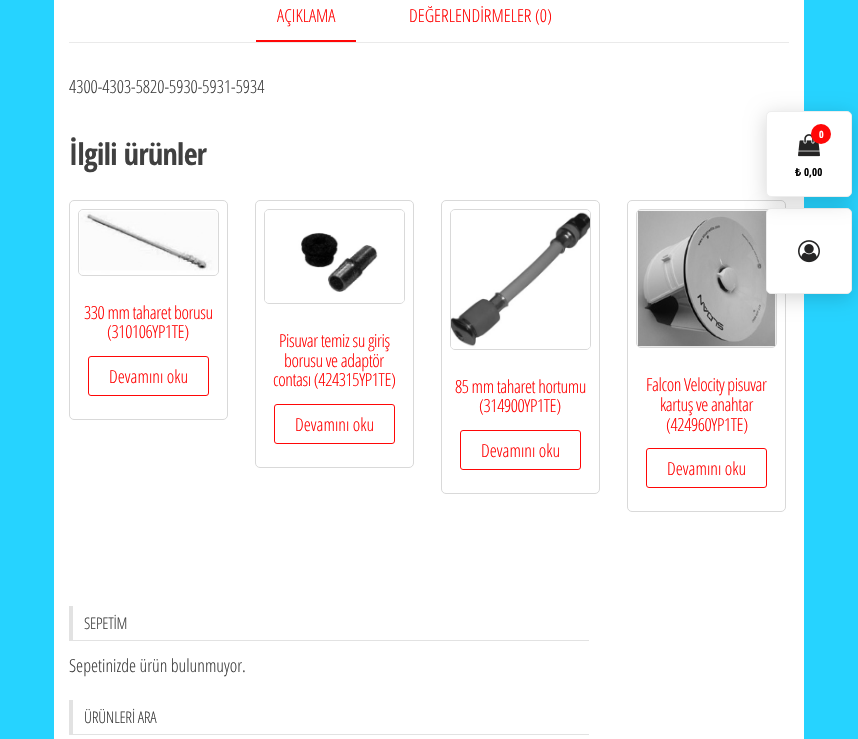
#include "include/core/SkBlurTypes.h"
#include "include/core/SkCanvas.h"
#include "include/core/SkData.h"
#include "include/core/SkFont.h"
#include "include/core/SkFontMgr.h"
#include "include/core/SkImage.h"
#include "include/core/SkMaskFilter.h"
#include "include/core/SkPaint.h"
#include "include/core/SkPathBuilder.h"
#include "include/core/SkTextBlob.h"
#include "include/effects/SkDashPathEffect.h"
#include "include/effects/SkGradientShader.h"
#include "include/utils/SkParsePath.h"

extern sk_sp<SkFontMgr> fontMgr;

void draw(SkCanvas* canvas) {
    SkPaint p;
    p.setAntiAlias(true);
    auto font = [&](const char* family, int weight, float size, bool italic = false) {
        SkFontStyle style(weight, SkFontStyle::kNormal_Width,
            italic ? SkFontStyle::kItalic_Slant : SkFontStyle::kUpright_Slant);
        SkFont result(fontMgr->matchFamilyStyle(family, style), size);
        result.setSubpixel(true);
        return result;
    };
    auto drawTracked = [&](const char* s, float x, float y, const SkFont& font, const SkPaint& ink, float letter, float word) {
        std::vector<SkGlyphID> glyphs(font.countText(s, strlen(s), SkTextEncoding::kUTF8));
        std::vector<float> xs(glyphs.size());
        font.textToGlyphs(s, strlen(s), SkTextEncoding::kUTF8, glyphs);
        font.getXPos(glyphs, xs, x);
        float extra = 0;
        for (size_t i = 0; i < glyphs.size(); i++) {
            xs[i] += extra;
            extra += letter + word * (glyphs[i] == font.unicharToGlyph(' '));
        }
        canvas->drawTextBlob(SkTextBlob::MakeFromPosHGlyphs(glyphs, xs, y, font), 0, 0, ink);
    };
    auto drawPhoto = [&](const char* path, float l, float t, float r, float b) {
        auto image = SkImages::DeferredFromEncodedData(SkData::MakeFromFileName(path));
        canvas->drawImageRect(image, SkRect::MakeLTRB(l, t, r, b), SkSamplingOptions());
    };
    canvas->clear(0xFF26D3FF);
    {
        const struct { float l, t, r, b; SkColor color; } items[] = {
            {54, 0, 804, 739, 0xFFFFFFFF},
            {69, 42, 789, 43, 0xFFEAEAEA},
            {256, 40, 356, 42, 0xFFFF0707},
        };
        for (auto [l, t, r, b, color] : items) {
            p.setColor(color);
            canvas->drawRect(SkRect::MakeLTRB(l, t, r, b), p);
        }
    }
    auto font1 = font("Open Sans Condensed", 300, 18);
    canvas->drawString("AÇIKLAMA", 277, 22, font1, p);
    canvas->drawString("DEĞERLENDİRMELER (0)", 409, 22, font1, p);
    p.setColor(0xFF404040);
    canvas->drawString("4300-4303-5820-5930-5931-5934", 69, 93, font1, p);
    auto font2 = font("Open Sans Condensed", 700, 30);
    drawTracked("İlgili ürünler", 69, 165, font2, p, -0.6f, 0);
    p.setStyle(SkPaint::kStroke_Style);
    p.setStrokeWidth(1);
    p.setColor(0xFFD9D9D9);
    canvas->drawRoundRect(SkRect::MakeLTRB(69.5f, 200.5f, 227.5f, 419.5f), 4.5f, 4.5f, p);
    canvas->drawRoundRect(SkRect::MakeLTRB(78.5f, 209.5f, 218.5f, 275.5f), 4.5f, 4.5f, p);
    drawPhoto("media/1.png", 79, 210, 218, 275);
    p.setStyle(SkPaint::kFill_Style);
    p.setColor(0xFFFF0707);
    drawTracked("330 mm taharet borusu", 84, 319, font1, p, -0.4f, 0);
    drawTracked("(310106YP1TE)", 107, 338, font1, p, -0.4f, 0);
    p.setStyle(SkPaint::kStroke_Style);
    canvas->drawRoundRect(SkRect::MakeLTRB(88.5f, 356.5f, 208.5f, 395.5f), 2.5f, 2.5f, p);
    p.setStyle(SkPaint::kFill_Style);
    canvas->drawString("Devamını oku", 109, 383, font1, p);
    p.setStyle(SkPaint::kStroke_Style);
    p.setColor(0xFFD9D9D9);
    canvas->drawRoundRect(SkRect::MakeLTRB(255.5f, 200.5f, 413.5f, 467.5f), 4.5f, 4.5f, p);
    canvas->drawRoundRect(SkRect::MakeLTRB(264.5f, 209.5f, 404.5f, 303.5f), 4.5f, 4.5f, p);
    drawPhoto("media/2.png", 265, 210, 404, 303);
    p.setStyle(SkPaint::kFill_Style);
    p.setColor(0xFFFF0707);
    {
        const struct { const char* s; float x, y; } items[] = {
            {"Pisuvar temiz su giriş", 279, 347},
            {"borusu ve adaptör", 284, 367},
            {"contası (424315YP1TE)", 273, 386},
        };
        for (auto [s, x, y] : items) {
            drawTracked(s, x, y, font1, p, -0.4f, 0);
        }
    }
    p.setStyle(SkPaint::kStroke_Style);
    canvas->drawRoundRect(SkRect::MakeLTRB(274.5f, 404.5f, 394.5f, 443.5f), 2.5f, 2.5f, p);
    p.setStyle(SkPaint::kFill_Style);
    canvas->drawString("Devamını oku", 295, 431, font1, p);
    p.setStyle(SkPaint::kStroke_Style);
    p.setColor(0xFFD9D9D9);
    canvas->drawRoundRect(SkRect::MakeLTRB(441.5f, 200.5f, 599.5f, 493.5f), 4.5f, 4.5f, p);
    canvas->drawRoundRect(SkRect::MakeLTRB(450.5f, 209.5f, 590.5f, 349.5f), 4.5f, 4.5f, p);
    drawPhoto("media/3.png", 451, 210, 590, 349);
    p.setStyle(SkPaint::kFill_Style);
    p.setColor(0xFFFF0707);
    drawTracked("85 mm taharet hortumu", 455, 393, font1, p, -0.4f, 0);
    drawTracked("(314900YP1TE)", 479, 412, font1, p, -0.4f, 0);
    p.setStyle(SkPaint::kStroke_Style);
    canvas->drawRoundRect(SkRect::MakeLTRB(460.5f, 430.5f, 580.5f, 469.5f), 2.5f, 2.5f, p);
    p.setStyle(SkPaint::kFill_Style);
    canvas->drawString("Devamını oku", 481, 457, font1, p);
    p.setStyle(SkPaint::kStroke_Style);
    p.setColor(0xFFD9D9D9);
    canvas->drawRoundRect(SkRect::MakeLTRB(627.5f, 200.5f, 785.5f, 511.5f), 4.5f, 4.5f, p);
    canvas->drawRoundRect(SkRect::MakeLTRB(636.5f, 209.5f, 776.5f, 347.5f), 4.5f, 4.5f, p);
    drawPhoto("media/4.png", 637, 210, 776, 347);
    p.setStyle(SkPaint::kFill_Style);
    p.setColor(0xFFFF0707);
    {
        const struct { const char* s; float x, y; } items[] = {
            {"Falcon Velocity pisuvar", 646, 391},
            {"kartuş ve anahtar", 660, 411},
            {"(424960YP1TE)", 666, 431},
        };
        for (auto [s, x, y] : items) {
            drawTracked(s, x, y, font1, p, -0.4f, 0);
        }
    }
    p.setStyle(SkPaint::kStroke_Style);
    canvas->drawRoundRect(SkRect::MakeLTRB(646.5f, 448.5f, 766.5f, 487.5f), 2.5f, 2.5f, p);
    p.setStyle(SkPaint::kFill_Style);
    canvas->drawString("Devamını oku", 667, 475, font1, p);
    p.setColor(0xFFE2E2E2);
    canvas->drawRect(SkRect::MakeLTRB(69, 640, 589, 641), p);
    canvas->drawRect(SkRect::MakeLTRB(69, 606, 73, 640), p);
    auto font3 = font("Open Sans Condensed", 300, 16);
    p.setColor(0xFF404040);
    drawTracked("SEPETİM", 84, 629, font3, p, -0.25f, 0);
    canvas->drawString("Sepetinizde ürün bulunmuyor.", 69, 672, font1, p);
    p.setColor(0xFFE2E2E2);
    canvas->drawRect(SkRect::MakeLTRB(69, 734, 589, 735), p);
    canvas->drawRect(SkRect::MakeLTRB(69, 700, 73, 734), p);
    p.setColor(0xFF404040);
    drawTracked("ÜRÜNLERİ ARA", 84, 723, font3, p, -0.25f, 0);
    p.setColor(0x2B000000);
    p.setMaskFilter(SkMaskFilter::MakeBlur(kNormal_SkBlurStyle, 10));
    canvas->drawRoundRect(SkRect::MakeLTRB(766, 212, 852, 298), 5, 5, p);
    p.setMaskFilter(nullptr);
    p.setColor(0xFFFFFFFF);
    canvas->drawRoundRect(SkRect::MakeLTRB(766.5f, 208.5f, 851.5f, 293.5f), 4.5f, 4.5f, p);
    p.setStyle(SkPaint::kStroke_Style);
    p.setColor(0xFFEDEDED);
    canvas->drawRoundRect(SkRect::MakeLTRB(766.5f, 208.5f, 851.5f, 293.5f), 4.5f, 4.5f, p);
    p.setStyle(SkPaint::kFill_Style);
    p.setColor(0x2B000000);
    p.setMaskFilter(SkMaskFilter::MakeBlur(kNormal_SkBlurStyle, 10));
    canvas->drawRoundRect(SkRect::MakeLTRB(766, 115, 852, 201), 5, 5, p);
    p.setMaskFilter(nullptr);
    p.setColor(0xFFFFFFFF);
    canvas->drawRoundRect(SkRect::MakeLTRB(766.5f, 111.5f, 851.5f, 196.5f), 4.5f, 4.5f, p);
    p.setStyle(SkPaint::kStroke_Style);
    p.setColor(0xFFEDEDED);
    canvas->drawRoundRect(SkRect::MakeLTRB(766.5f, 111.5f, 851.5f, 196.5f), 4.5f, 4.5f, p);
    drawPhoto("media/5.png", 798, 134, 820, 157);
    p.setStyle(SkPaint::kFill_Style);
    p.setColor(0xFFFF0707);
    canvas->drawCircle(821, 134, 10, p);
    auto font4 = font("Open Sans Condensed", 700, 10);
    p.setColor(0xFFFFFFFF);
    canvas->drawString("0", 819, 138, font4, p);
    auto font5 = font("Noto Sans", 700, 11);
    p.setColor(0xFF000000);
    canvas->drawString("₺", 795, 176, font5, p);
    auto font6 = font("Open Sans Condensed", 700, 11);
    canvas->drawString("0,00", 804, 176, font6, p);
    drawPhoto("media/6.png", 798, 240, 820, 263);
}
